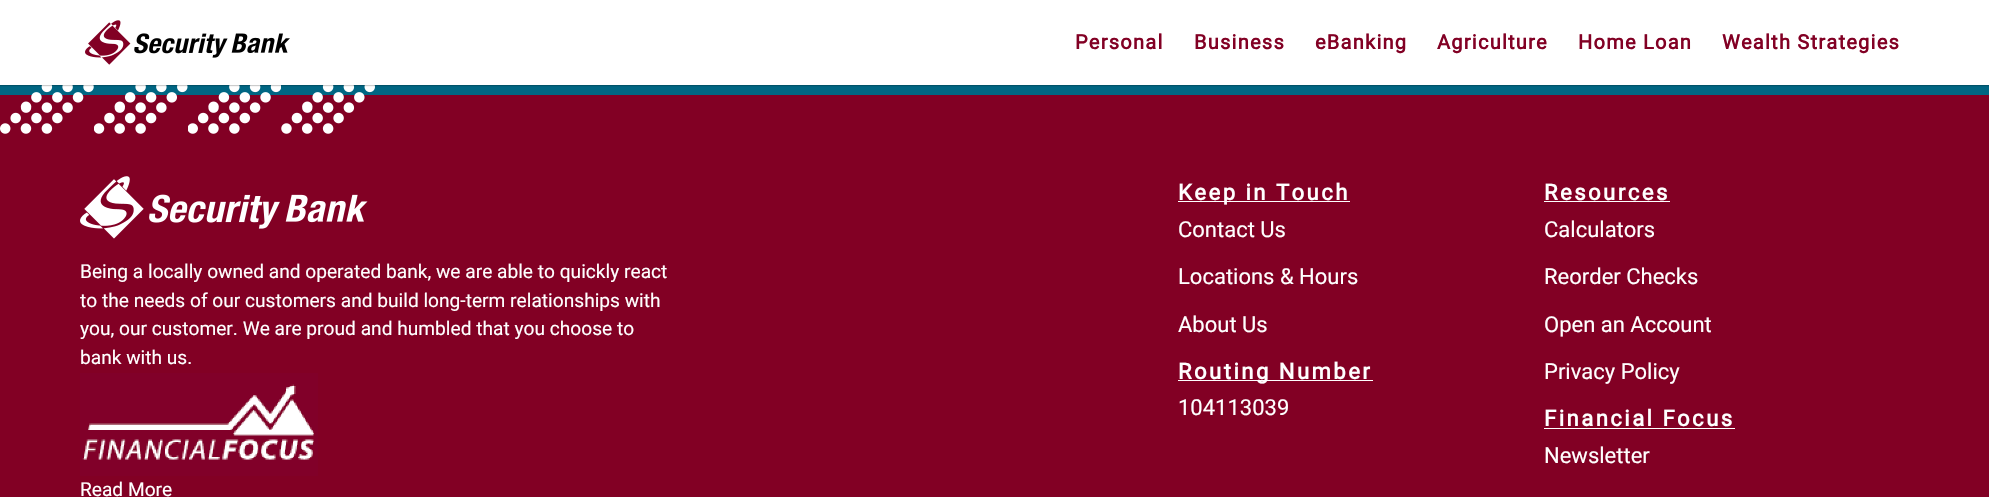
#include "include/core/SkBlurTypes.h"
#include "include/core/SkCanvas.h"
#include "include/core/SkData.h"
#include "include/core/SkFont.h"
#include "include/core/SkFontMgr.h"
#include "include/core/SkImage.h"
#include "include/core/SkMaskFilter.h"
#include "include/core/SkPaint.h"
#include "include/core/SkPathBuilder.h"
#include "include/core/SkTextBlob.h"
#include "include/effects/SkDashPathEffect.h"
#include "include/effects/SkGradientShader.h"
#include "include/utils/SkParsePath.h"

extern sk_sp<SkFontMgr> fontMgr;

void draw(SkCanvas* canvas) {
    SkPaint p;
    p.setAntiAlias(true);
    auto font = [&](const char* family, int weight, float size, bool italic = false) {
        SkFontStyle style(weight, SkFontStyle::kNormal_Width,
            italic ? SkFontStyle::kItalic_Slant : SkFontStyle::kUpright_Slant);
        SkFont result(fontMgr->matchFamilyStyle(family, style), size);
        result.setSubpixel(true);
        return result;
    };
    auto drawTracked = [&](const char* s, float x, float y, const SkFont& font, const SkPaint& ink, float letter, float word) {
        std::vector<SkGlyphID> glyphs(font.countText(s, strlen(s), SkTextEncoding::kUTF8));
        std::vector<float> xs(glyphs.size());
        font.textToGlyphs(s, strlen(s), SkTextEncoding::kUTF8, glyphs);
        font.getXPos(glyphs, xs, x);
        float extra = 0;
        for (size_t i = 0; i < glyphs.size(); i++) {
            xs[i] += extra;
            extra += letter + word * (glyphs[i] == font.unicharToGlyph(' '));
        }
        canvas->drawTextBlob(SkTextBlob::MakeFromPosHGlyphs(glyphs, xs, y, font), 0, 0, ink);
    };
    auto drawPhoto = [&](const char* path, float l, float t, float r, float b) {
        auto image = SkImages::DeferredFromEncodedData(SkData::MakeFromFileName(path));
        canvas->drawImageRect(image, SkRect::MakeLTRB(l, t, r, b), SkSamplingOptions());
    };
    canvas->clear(0xFF006683);
    p.setColor(0xFF820024);
    canvas->drawRect(SkRect::MakeLTRB(0, 95, 1989, 497), p);
    drawPhoto("media/2.png", 0, 85, 94, 134);
    drawPhoto("media/3.png", 94, 85, 188, 134);
    drawPhoto("media/4.png", 188, 85, 281, 134);
    drawPhoto("media/5.png", 281, 85, 375, 134);
    p.setColor(0x33000000);
    p.setMaskFilter(SkMaskFilter::MakeBlur(kNormal_SkBlurStyle, 0.5f));
    canvas->drawRect(SkRect::MakeLTRB(-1, -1, 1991, 86), p);
    p.setMaskFilter(nullptr);
    p.setColor(0xFFFFFFFF);
    canvas->drawRect(SkRect::MakeLTRB(0, 0, 1989, 85), p);
    drawPhoto("media/1.png", 85, 20, 290, 65);
    auto font1 = font("Roboto", 700, 20);
    p.setColor(0xFF820024);
    {
        const struct { const char* s; float x, y; } items[] = {
            {"Personal", 1075, 49},
            {"Business", 1194, 49},
            {"eBanking", 1315, 49},
            {"Agriculture", 1437, 49},
            {"Home Loan", 1578, 49},
            {"Wealth Strategies", 1722, 49},
        };
        for (auto [s, x, y] : items) {
            drawTracked(s, x, y, font1, p, 1.25f, 0);
        }
    }
    drawPhoto("media/6.png", 80, 176, 368, 239);
    auto font2 = font("Roboto", 400, 19.15f);
    p.setColor(0xFFFFFFFF);
    {
        const struct { const char* s; float x, y; } items[] = {
            {"Being a locally owned and operated bank, we are able to quickly react", 80, 278},
            {"to the needs of our customers and build long-term relationships with", 80, 307},
            {"you, our customer. We are proud and humbled that you choose to", 80, 335},
            {"bank with us.", 80, 364},
        };
        for (auto [s, x, y] : items) {
            canvas->drawString(s, x, y, font2, p);
        }
    }
    drawPhoto("media/7.png", 80, 373, 318, 476);
    canvas->drawString("Read More", 80, 496, font2, p);
    canvas->drawRect(SkRect::MakeLTRB(1178, 201, 1350, 202), p);
    auto font3 = font("Roboto", 700, 22);
    drawTracked("Keep in Touch", 1178, 200, font3, p, 2.5f, 0);
    auto font4 = font("Roboto", 400, 22);
    {
        const struct { const char* s; float x, y; } items[] = {
            {"Contact Us", 1178, 237},
            {"Locations & Hours", 1178, 284},
            {"About Us", 1178, 332},
        };
        for (auto [s, x, y] : items) {
            canvas->drawString(s, x, y, font4, p);
        }
    }
    canvas->drawRect(SkRect::MakeLTRB(1178, 380, 1373, 381), p);
    drawTracked("Routing Number", 1178, 379, font3, p, 2.5f, 0);
    canvas->drawString("104113039", 1178, 415, font4, p);
    drawTracked("Resources", 1544, 200, font3, p, 2.5f, 0);
    canvas->drawRect(SkRect::MakeLTRB(1544, 201, 1670, 202), p);
    {
        const struct { const char* s; float x, y; } items[] = {
            {"Calculators", 1544, 237},
            {"Reorder Checks", 1544, 284},
            {"Open an Account", 1544, 332},
            {"Privacy Policy", 1544, 379},
        };
        for (auto [s, x, y] : items) {
            canvas->drawString(s, x, y, font4, p);
        }
    }
    drawTracked("Financial Focus", 1544, 426, font3, p, 2.5f, 0);
    canvas->drawRect(SkRect::MakeLTRB(1544, 428, 1735, 429), p);
    canvas->drawString("Newsletter", 1544, 463, font4, p);
}
